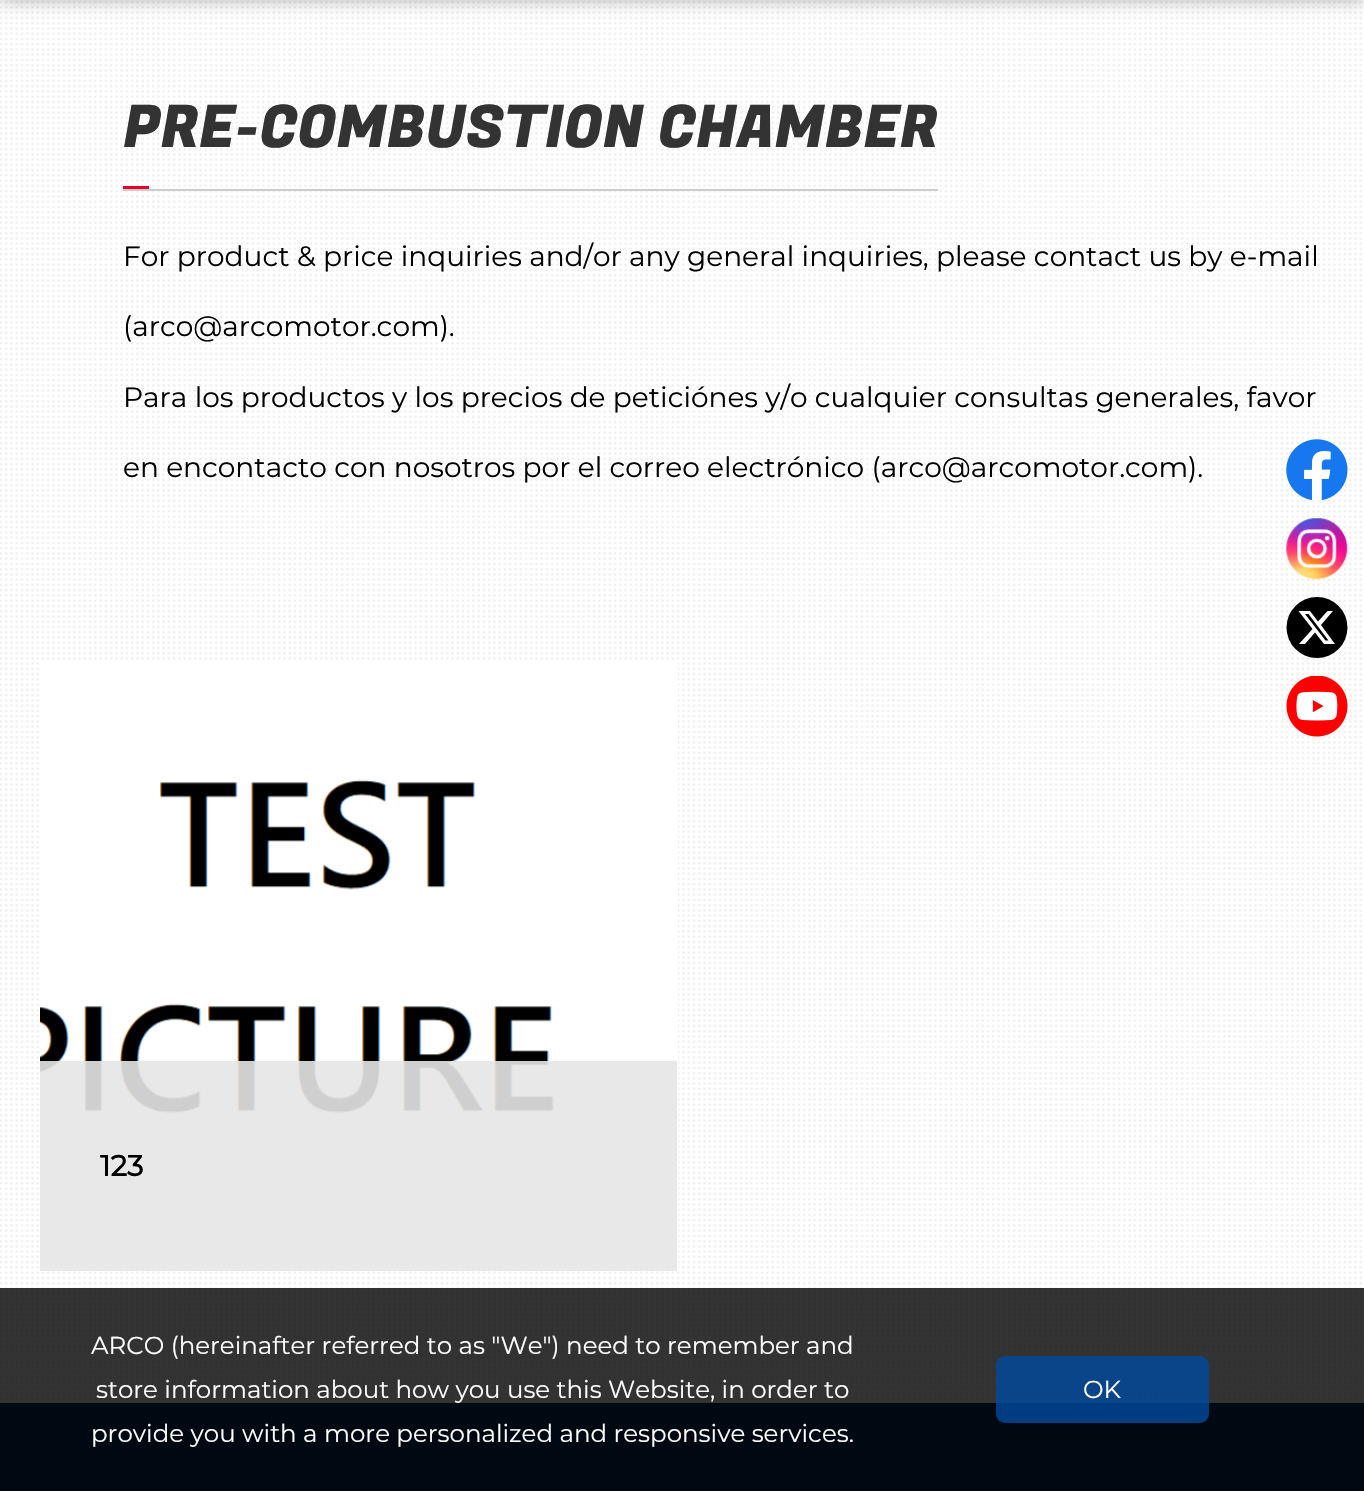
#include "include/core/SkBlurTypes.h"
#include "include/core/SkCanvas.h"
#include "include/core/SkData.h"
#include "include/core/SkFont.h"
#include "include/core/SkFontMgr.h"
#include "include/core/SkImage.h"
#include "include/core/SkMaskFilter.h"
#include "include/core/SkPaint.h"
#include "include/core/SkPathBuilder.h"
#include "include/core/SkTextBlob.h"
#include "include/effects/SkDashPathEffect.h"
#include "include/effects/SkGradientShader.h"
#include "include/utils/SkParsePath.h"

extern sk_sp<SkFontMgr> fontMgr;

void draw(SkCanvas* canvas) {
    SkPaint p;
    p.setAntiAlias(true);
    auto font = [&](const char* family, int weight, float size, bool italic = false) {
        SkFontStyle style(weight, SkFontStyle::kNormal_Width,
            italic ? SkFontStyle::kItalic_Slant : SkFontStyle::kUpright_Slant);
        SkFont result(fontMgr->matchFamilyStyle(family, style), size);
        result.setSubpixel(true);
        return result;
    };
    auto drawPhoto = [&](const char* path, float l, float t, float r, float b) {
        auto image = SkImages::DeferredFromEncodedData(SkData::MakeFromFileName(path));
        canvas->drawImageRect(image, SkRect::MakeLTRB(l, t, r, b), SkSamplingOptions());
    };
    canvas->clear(0xFFFFFFFF);
    drawPhoto("media/1.png", 0, 1, 1362, 1403);
    p.setColor(0x4D000000);
    p.setMaskFilter(SkMaskFilter::MakeBlur(kNormal_SkBlurStyle, 9));
    canvas->drawRect(SkRect::MakeLTRB(0, -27, 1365, 0), p);
    p.setMaskFilter(nullptr);
    auto font1 = font("Fugaz One", 400, 58.75f);
    p.setColor(0xFF333333);
    canvas->drawString("PRE-COMBUSTION CHAMBER", 123, 147, font1, p);
    p.setColor(0xFFE4002B);
    canvas->drawRect(SkRect::MakeLTRB(123, 186, 149, 189), p);
    p.setColor(0xFFCCCCCC);
    canvas->drawRect(SkRect::MakeLTRB(123, 189, 938, 191), p);
    auto font2 = font("Montserrat", 100, 28);
    p.setColor(0xFF000000);
    {
        const struct { const char* s; float x, y; } items[] = {
            {"For product & price inquiries and/or any general inquiries, please contact us by e-mail", 123, 266},
            {"(arco@arcomotor.com).", 123, 336},
            {"Para los productos y los precios de peticiónes y/o cualquier consultas generales, favor", 123, 407},
            {"en encontacto con nosotros por el correo electrónico (arco@arcomotor.com).", 123, 477},
        };
        for (auto [s, x, y] : items) {
            canvas->drawString(s, x, y, font2, p);
        }
    }
    drawPhoto("media/2.png", 40, 662, 678, 1269);
    p.setColor(0xE6E6E6E6);
    canvas->drawRect(SkRect::MakeLTRB(40, 1061, 677, 1271), p);
    auto font3 = font("Montserrat", 700, 29);
    p.setColor(0xFF000000);
    canvas->drawString("123", 100, 1176, font3, p);
    p.setColor(0xFF002454);
    canvas->drawRect(SkRect::MakeLTRB(0, 1403, 1364, 1491), p);
    p.setColor(0xFFE4002B);
    canvas->drawPath(SkPathBuilder().moveTo(682.5f, 1431.5f).lineTo(692.5f, 1441.5f).lineTo(691.5f, 1442.5f).lineTo(682.5f, 1433.5f).lineTo(673.5f, 1442.5f).lineTo(672.5f, 1441.5f).close().detach(), p);
    drawPhoto("media/3.png", 1286, 439, 1348, 501);
    drawPhoto("media/4.png", 1286, 518, 1348, 580);
    p.setColor(0xFF000000);
    canvas->drawCircle(1317, 627.5f, 30.5f, p);
    p.setColor(0xFFFFFFFF);
    canvas->drawPath(SkPathBuilder().moveTo(1327.5f, 611).lineTo(1333, 611).lineTo(1321, 625).lineTo(1335, 644).lineTo(1324, 644).lineTo(1315, 632.5f).lineTo(1305, 644).lineTo(1299, 644).lineTo(1312.5f, 629).lineTo(1298.5f, 611).lineTo(1310, 611).lineTo(1318, 621.5f).close().moveTo(1325.5f, 640.5f).lineTo(1328.5f, 640.5f).lineTo(1308.5f, 614).lineTo(1305, 614).close().detach(), p);
    drawPhoto("media/5.png", 1286, 676, 1348, 737);
    p.setColor(0xCC000000);
    canvas->drawRect(SkRect::MakeLTRB(0, 1288, 1364, 1491), p);
    auto font4 = font("Montserrat", 100, 24.5f);
    p.setColor(0xFFFFFFFF);
    {
        const struct { const char* s; float x, y; } items[] = {
            {"ARCO (hereinafter referred to as \"We\") need to remember and", 91, 1354},
            {"store information about how you use this Website, in order to", 96, 1398},
            {"provide you with a more personalized and responsive services.", 91, 1442},
        };
        for (auto [s, x, y] : items) {
            canvas->drawString(s, x, y, font4, p);
        }
    }
    p.setColor(0xCC00489E);
    canvas->drawRoundRect(SkRect::MakeLTRB(996, 1356, 1209, 1423), 9, 9, p);
    p.setColor(0xFFFFFFFF);
    canvas->drawString("OK", 1083, 1398, font4, p);
}
